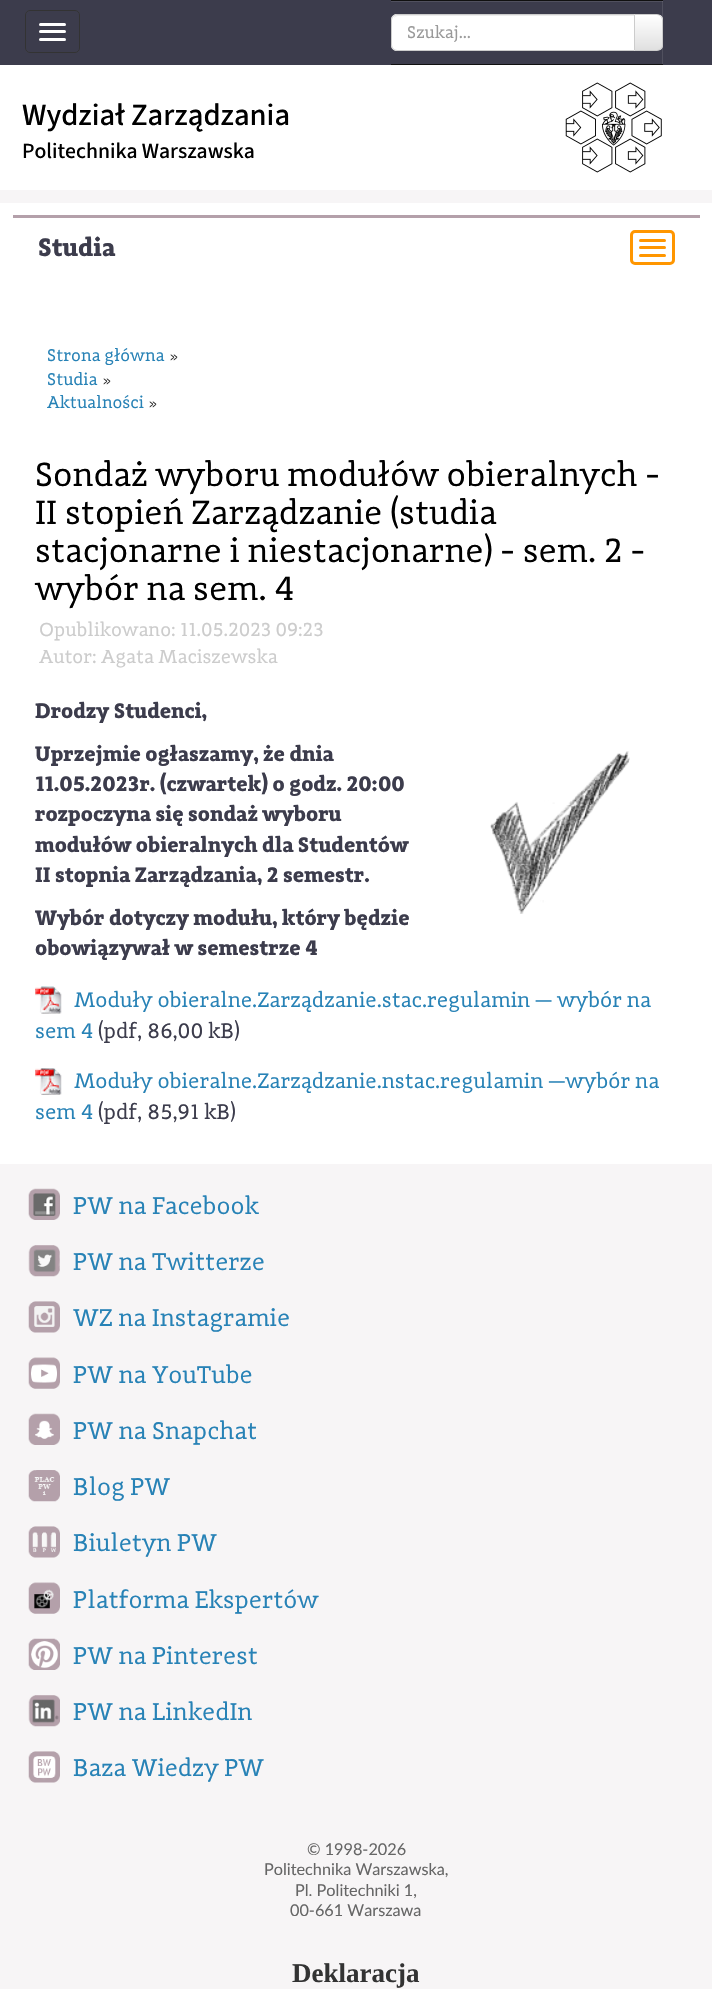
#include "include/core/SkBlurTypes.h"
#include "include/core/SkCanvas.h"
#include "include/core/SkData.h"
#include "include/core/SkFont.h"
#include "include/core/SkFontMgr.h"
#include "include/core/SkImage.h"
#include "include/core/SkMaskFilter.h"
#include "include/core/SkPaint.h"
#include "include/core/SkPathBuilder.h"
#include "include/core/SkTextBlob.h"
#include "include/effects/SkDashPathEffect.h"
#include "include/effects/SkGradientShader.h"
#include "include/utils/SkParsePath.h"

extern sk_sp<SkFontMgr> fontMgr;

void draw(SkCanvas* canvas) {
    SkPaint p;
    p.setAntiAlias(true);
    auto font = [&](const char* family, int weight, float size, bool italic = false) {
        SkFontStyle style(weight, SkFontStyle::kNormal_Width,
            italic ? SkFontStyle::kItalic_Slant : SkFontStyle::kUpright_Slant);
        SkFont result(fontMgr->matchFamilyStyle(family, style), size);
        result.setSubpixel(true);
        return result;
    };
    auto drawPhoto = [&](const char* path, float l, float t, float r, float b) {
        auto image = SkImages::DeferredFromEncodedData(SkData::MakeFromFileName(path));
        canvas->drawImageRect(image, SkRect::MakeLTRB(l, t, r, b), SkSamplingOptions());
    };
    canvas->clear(0xFFF7F5F6);
    p.setColor(0xFF3C3C4C);
    canvas->drawRect(SkRect::MakeLTRB(0, 0, 712, 65), p);
    p.setStyle(SkPaint::kStroke_Style);
    p.setStrokeWidth(1);
    p.setColor(0xFF333333);
    canvas->drawRoundRect(SkRect::MakeLTRB(25.5f, 10.5f, 79.5f, 52.5f), 4.5f, 4.5f, p);
    p.setStyle(SkPaint::kFill_Style);
    p.setColor(0xFFFFFFFF);
    canvas->drawRoundRect(SkRect::MakeLTRB(39, 23, 66, 26), 1.5f, 1.5f, p);
    canvas->drawRoundRect(SkRect::MakeLTRB(39, 30, 66, 33), 1.5f, 1.5f, p);
    canvas->drawRoundRect(SkRect::MakeLTRB(39, 38, 66, 41), 1.5f, 1.5f, p);
    canvas->drawRect(SkRect::MakeLTRB(0, 65, 712, 190), p);
    p.setColor(0x1AFFFFFF);
    canvas->drawPath(SkPathBuilder().moveTo(391, 1).lineTo(391, 66).lineTo(663, 66).lineTo(663, 1).lineTo(662, 1).lineTo(662, 65).lineTo(391, 65).close().detach(), p);
    {
        const struct { float l, t, r, b; SkColor color; } items[] = {
            {391, 1, 663, 2, 0x1AFFFFFF},
            {391, 0, 663, 1, 0xFF101010},
            {391, 64, 663, 65, 0xFF101010},
        };
        for (auto [l, t, r, b, color] : items) {
            p.setColor(color);
            canvas->drawRect(SkRect::MakeLTRB(l, t, r, b), p);
        }
    }
    canvas->save();
    canvas->clipPath(SkPathBuilder().moveTo(634, 14).lineTo(657, 14).cubicTo(660.5f, 14, 663, 16.5f, 663, 20).lineTo(663, 45).cubicTo(663, 48.5f, 660.5f, 51, 657, 51).lineTo(634, 51).close().detach(), true);
    {
        const SkColor colors[] = {0xFFFFFFFF, 0xFFE0E0E0};
        const float stops[] = {0, 1};
        const SkPoint ends[] = {{648, 15}, {648, 50}};
        p.setShader(SkGradientShader::MakeLinear(ends, colors, stops, 2, SkTileMode::kClamp));
        p.setAlpha(255);
    }
    canvas->drawRect(SkRect::MakeLTRB(635, 15, 663, 50), p);
    canvas->restore();
    p.setStyle(SkPaint::kStroke_Style);
    p.setShader(nullptr);
    p.setColor(0xFFCCCCCC);
    canvas->drawPath(SkPathBuilder().moveTo(634.5f, 14.5f).lineTo(657, 14.5f).cubicTo(660, 14.5f, 662.5f, 17, 662.5f, 20).lineTo(662.5f, 45).cubicTo(662.5f, 48, 660, 50.5f, 657, 50.5f).lineTo(634.5f, 50.5f).close().detach(), p);
    p.setStyle(SkPaint::kFill_Style);
    p.setColor(0xFFFFFFFF);
    canvas->drawPath(SkPathBuilder().moveTo(397, 14).lineTo(635, 14).lineTo(635, 51).lineTo(397, 51).cubicTo(393.5f, 51, 391, 48.5f, 391, 45).lineTo(391, 20).cubicTo(391, 16.5f, 393.5f, 14, 397, 14).close().detach(), p);
    p.setColor(0xFFECECEC);
    canvas->drawPath(SkPathBuilder().moveTo(398, 16).lineTo(634, 16).lineTo(634, 15).lineTo(398, 15).cubicTo(396, 15, 394, 16, 394, 18).cubicTo(395, 17, 396, 16, 398, 16).close().detach(), p);
    p.setStyle(SkPaint::kStroke_Style);
    p.setColor(0xFFCCCCCC);
    canvas->drawPath(SkPathBuilder().moveTo(397, 14.5f).lineTo(634.5f, 14.5f).lineTo(634.5f, 50.5f).lineTo(397, 50.5f).cubicTo(394, 50.5f, 391.5f, 48, 391.5f, 45).lineTo(391.5f, 20).cubicTo(391.5f, 17, 394, 14.5f, 397, 14.5f).close().detach(), p);
    auto font1 = font("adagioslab", 400, 17.5f);
    p.setStyle(SkPaint::kFill_Style);
    p.setColor(0xFF999999);
    canvas->drawString("Szukaj...", 407, 38, font1, p);
    auto font2 = font("Source Sans 3", 500, 30.75f);
    p.setColor(0xFF000000);
    canvas->drawString("Wydział Zarządzania", 22, 125, font2, p);
    auto font3 = font("Source Sans 3", 500, 21.7f);
    canvas->drawString("Politechnika Warszawska", 22, 158, font3, p);
    drawPhoto("media/1.png", 565, 82, 662, 173);
    p.setColor(0xFFFFFFFF);
    canvas->drawRect(SkRect::MakeLTRB(0, 203, 712, 1164), p);
    p.setColor(0xFFB4A0AA);
    canvas->drawRect(SkRect::MakeLTRB(13, 215, 700, 218), p);
    auto font4 = font("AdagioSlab", 700, 26);
    p.setColor(0xFF3C3C4C);
    canvas->drawString("Studia", 38, 256, font4, p);
    p.setStyle(SkPaint::kStroke_Style);
    p.setStrokeWidth(3);
    p.setColor(0xFFFF9600);
    canvas->drawRoundRect(SkRect::MakeLTRB(631.5f, 231.5f, 673.5f, 263.5f), 3.5f, 3.5f, p);
    p.setStyle(SkPaint::kFill_Style);
    canvas->drawRoundRect(SkRect::MakeLTRB(639, 239, 666, 242), 1.5f, 1.5f, p);
    canvas->drawRoundRect(SkRect::MakeLTRB(639, 246, 666, 249), 1.5f, 1.5f, p);
    canvas->drawRoundRect(SkRect::MakeLTRB(639, 254, 666, 257), 1.5f, 1.5f, p);
    p.setColor(0xFF2782B6);
    canvas->drawString("Strona główna", 47, 361, font1, p);
    auto font5 = font("adagioslab", 400, 14);
    p.setColor(0xFF333333);
    canvas->drawString("»", 170, 361, font5, p);
    p.setColor(0xFF2782B6);
    canvas->drawString("Studia", 47, 385, font1, p);
    p.setColor(0xFF333333);
    canvas->drawString("»", 103, 385, font5, p);
    p.setColor(0xFF2782B6);
    canvas->drawString("Aktualności", 47, 408, font1, p);
    p.setColor(0xFF333333);
    canvas->drawString("»", 149, 408, font5, p);
    auto font6 = font("adagioslab", 400, 34.7f);
    p.setColor(0xFF000000);
    {
        const struct { const char* s; float x, y; } items[] = {
            {"Sondaż wyboru modułów obieralnych -", 35, 486},
            {"II stopień Zarządzanie (studia", 35, 524},
            {"stacjonarne i niestacjonarne) - sem. 2 -", 35, 562},
            {"wybór na sem. 4", 35, 600},
        };
        for (auto [s, x, y] : items) {
            canvas->drawString(s, x, y, font6, p);
        }
    }
    auto font7 = font("adagioslab", 400, 19.5f);
    p.setColor(0xFFCCCCCC);
    canvas->drawString("Opublikowano: 11.05.2023 09:23", 39, 636, font7, p);
    canvas->drawString("Autor: Agata Maciszewska", 39, 663, font7, p);
    auto font8 = font("AdagioSlab", 700, 21.7f);
    p.setColor(0xFF3C3C4C);
    {
        const struct { const char* s; float x, y; } items[] = {
            {"Drodzy Studenci,", 35, 718},
            {"Uprzejmie ogłaszamy, że dnia", 35, 761},
            {"11.05.2023r. (czwartek) o godz. 20:00", 35, 791},
            {"rozpoczyna się sondaż wyboru", 35, 821},
            {"modułów obieralnych dla Studentów", 35, 852},
            {"II stopnia Zarządzania, 2 semestr.", 35, 882},
            {"Wybór dotyczy modułu, który będzie", 35, 925},
            {"obowiązywał w semestrze 4", 35, 955},
        };
        for (auto [s, x, y] : items) {
            canvas->drawString(s, x, y, font8, p);
        }
    }
    drawPhoto("media/2.png", 490, 751, 630, 914);
    drawPhoto("media/3.png", 35, 986, 62, 1014);
    auto font9 = font("adagioslab", 400, 21.7f);
    p.setColor(0xFF2782B6);
    canvas->drawString("Moduły obieralne.Zarządzanie.stac.regulamin — wybór na", 74, 1007, font9, p);
    canvas->drawString("sem 4", 35, 1038, font9, p);
    p.setColor(0xFF3C3C4C);
    canvas->drawString("(pdf, 86,00 kB)", 98, 1038, font9, p);
    drawPhoto("media/4.png", 35, 1068, 62, 1095);
    p.setColor(0xFF2782B6);
    canvas->drawString("Moduły obieralne.Zarządzanie.nstac.regulamin —wybór na", 74, 1088, font9, p);
    canvas->drawString("sem 4", 35, 1119, font9, p);
    p.setColor(0xFF3C3C4C);
    canvas->drawString("(pdf, 85,91 kB)", 98, 1119, font9, p);
    drawPhoto("media/5.png", 28, 1188, 60, 1220);
    auto font10 = font("adagioslab", 400, 25);
    p.setColor(0xFF2782B6);
    canvas->drawString("PW na Facebook", 73, 1214, font10, p);
    drawPhoto("media/6.png", 28, 1245, 60, 1277);
    canvas->drawString("PW na Twitterze", 73, 1270, font10, p);
    drawPhoto("media/7.png", 28, 1301, 60, 1333);
    canvas->drawString("WZ na Instagramie", 73, 1326, font10, p);
    drawPhoto("media/8.png", 28, 1357, 60, 1389);
    canvas->drawString("PW na YouTube", 73, 1383, font10, p);
    drawPhoto("media/9.png", 28, 1413, 60, 1445);
    canvas->drawString("PW na Snapchat", 73, 1439, font10, p);
    drawPhoto("media/10.png", 28, 1470, 60, 1502);
    canvas->drawString("Blog PW", 73, 1495, font10, p);
    drawPhoto("media/11.png", 28, 1526, 60, 1558);
    canvas->drawString("Biuletyn PW", 73, 1551, font10, p);
    drawPhoto("media/12.png", 28, 1582, 60, 1614);
    canvas->drawString("Platforma Ekspertów", 73, 1608, font10, p);
    drawPhoto("media/13.png", 28, 1638, 60, 1670);
    canvas->drawString("PW na Pinterest", 73, 1664, font10, p);
    drawPhoto("media/14.png", 28, 1695, 60, 1727);
    canvas->drawString("PW na LinkedIn", 73, 1720, font10, p);
    drawPhoto("media/15.png", 28, 1751, 60, 1783);
    canvas->drawString("Baza Wiedzy PW", 73, 1776, font10, p);
    auto font11 = font("Lato", 400, 16.25f);
    p.setColor(0xFF666666);
    {
        const struct { const char* s; float x, y; } items[] = {
            {"© 1998-2026", 307, 1855},
            {"Politechnika Warszawska,", 264, 1875},
            {"Pl. Politechniki 1,", 295, 1896},
            {"00-661 Warszawa", 290, 1916},
        };
        for (auto [s, x, y] : items) {
            canvas->drawString(s, x, y, font11, p);
        }
    }
    auto font12 = font("Liberation Serif", 700, 27);
    p.setColor(0xFF333333);
    canvas->drawString("Deklaracja", 292, 1982, font12, p);
}
